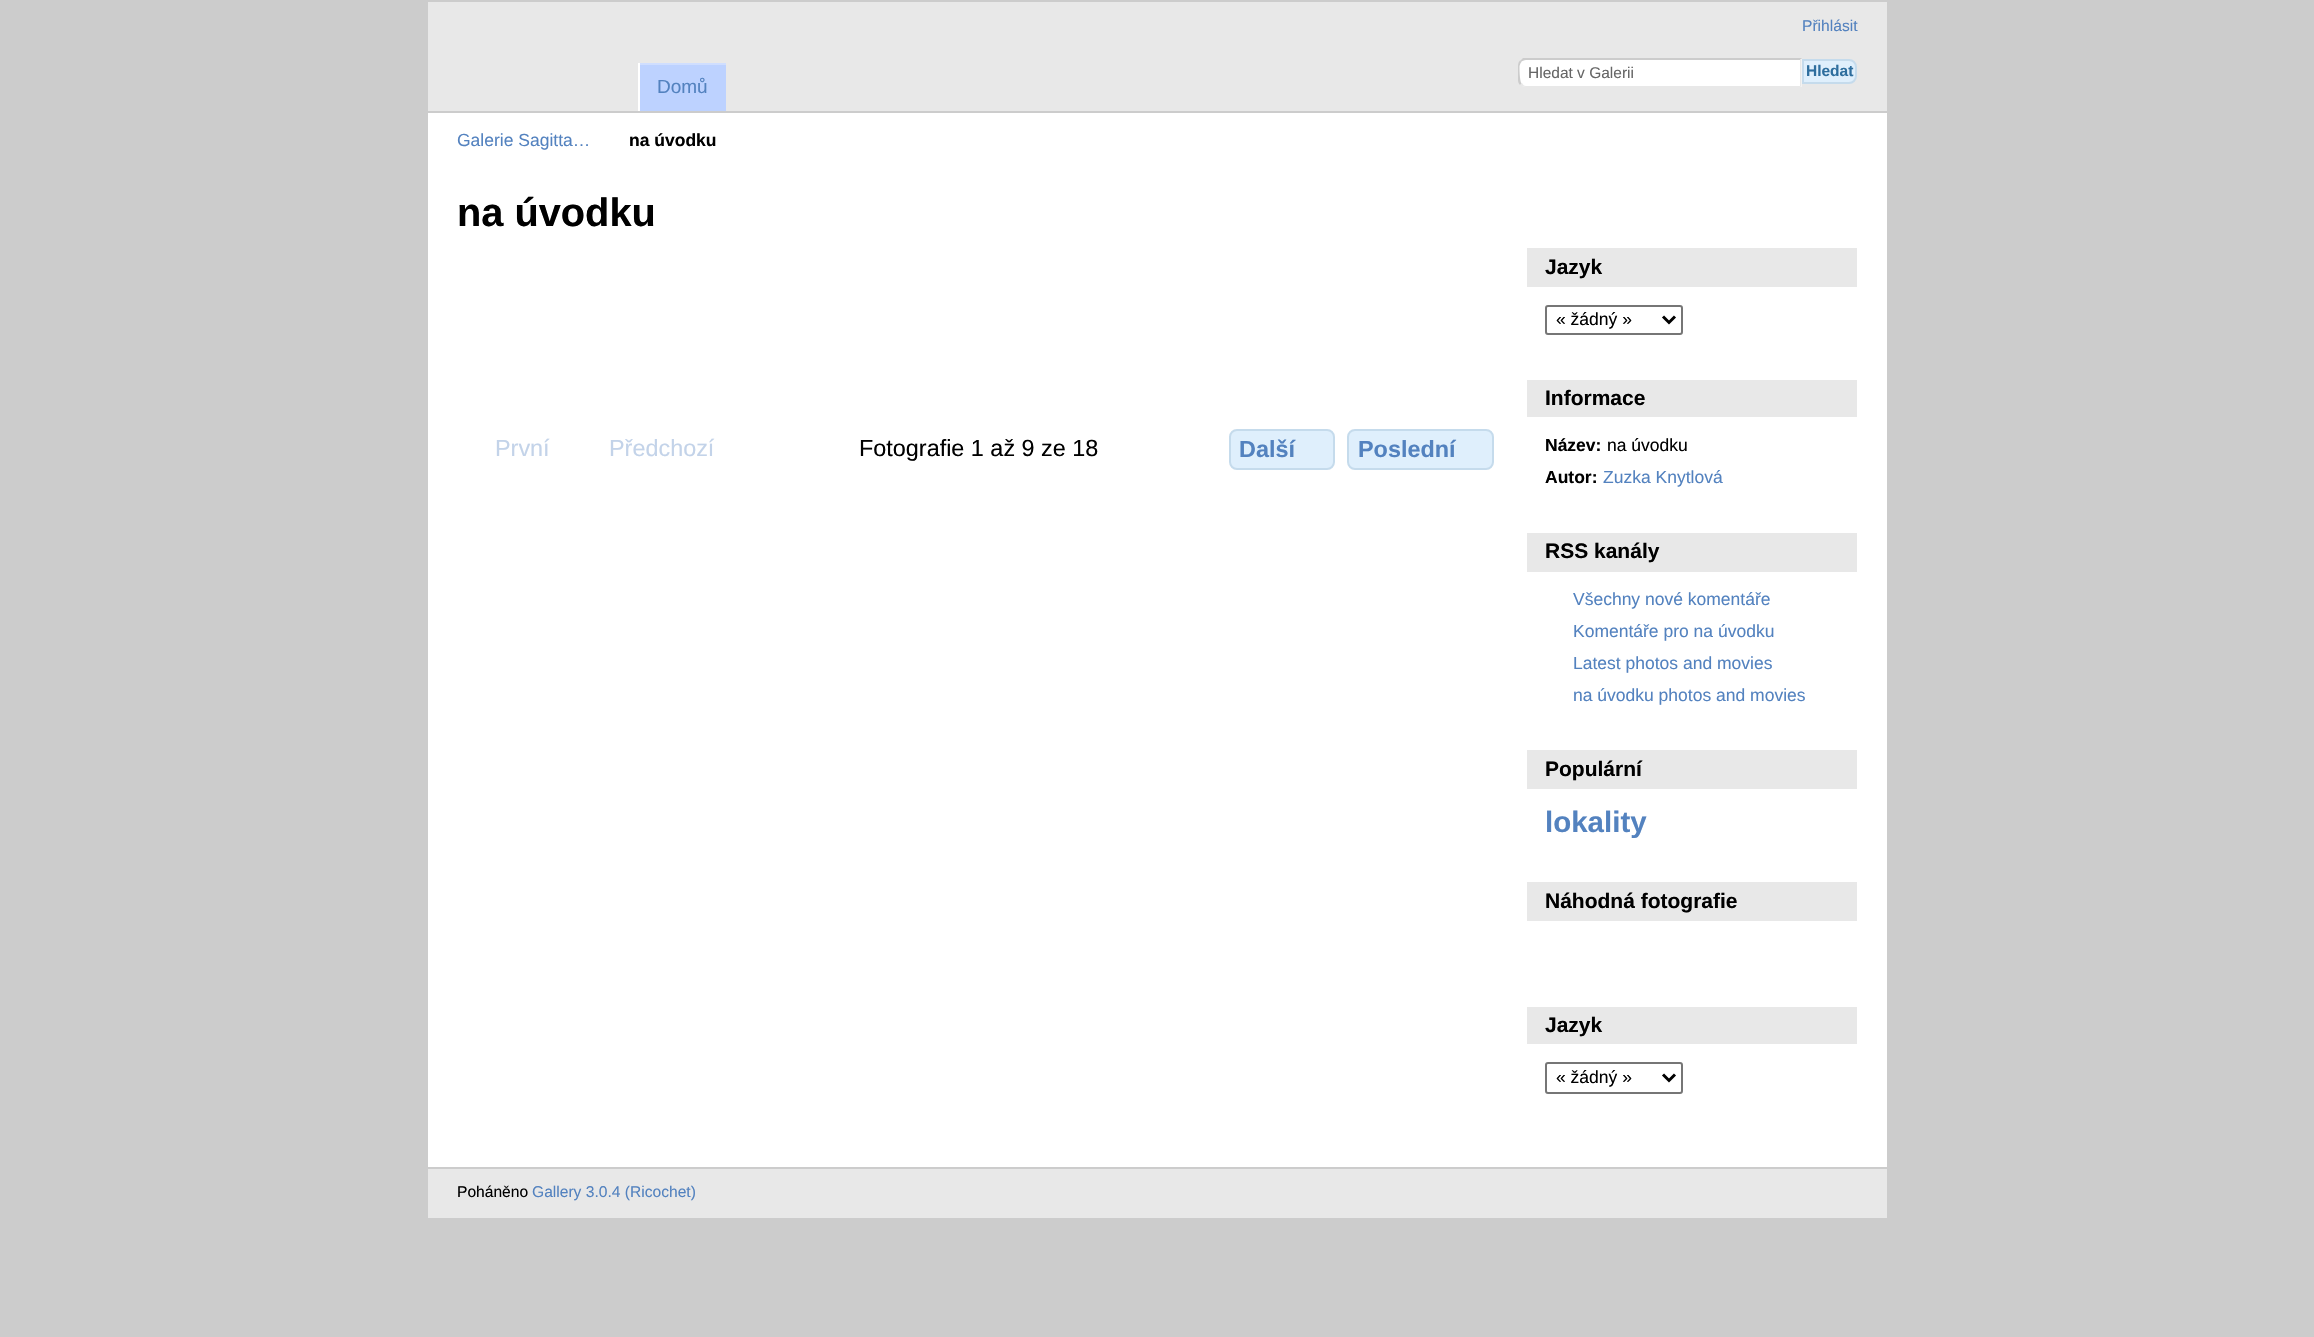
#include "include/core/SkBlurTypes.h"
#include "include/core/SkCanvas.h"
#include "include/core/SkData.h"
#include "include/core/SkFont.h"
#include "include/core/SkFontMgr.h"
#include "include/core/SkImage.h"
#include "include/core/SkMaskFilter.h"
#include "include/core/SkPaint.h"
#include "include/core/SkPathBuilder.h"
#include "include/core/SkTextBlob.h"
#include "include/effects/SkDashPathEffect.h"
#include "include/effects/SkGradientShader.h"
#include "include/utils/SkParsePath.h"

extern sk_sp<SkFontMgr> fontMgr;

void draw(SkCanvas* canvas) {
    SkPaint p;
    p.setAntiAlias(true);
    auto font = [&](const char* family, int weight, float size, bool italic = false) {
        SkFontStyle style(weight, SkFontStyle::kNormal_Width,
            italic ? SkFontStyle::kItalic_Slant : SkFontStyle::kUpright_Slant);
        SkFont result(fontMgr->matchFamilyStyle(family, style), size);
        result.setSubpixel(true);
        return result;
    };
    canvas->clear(0xFFCCCCCC);
    p.setColor(0xFFFFFFFF);
    canvas->drawRect(SkRect::MakeLTRB(428, 113, 1887, 1167), p);
    p.setColor(0xFFE8E8E8);
    canvas->drawRect(SkRect::MakeLTRB(428, 2, 1887, 111), p);
    auto font1 = font("Liberation Sans", 400, 15.6f);
    p.setColor(0xFF5382BF);
    canvas->drawString("Přihlásit", 1802, 31, font1, p);
    p.setColor(0xFFFFFFFF);
    canvas->drawPath(SkPathBuilder().moveTo(1526, 59).lineTo(1802, 59).lineTo(1802, 87).lineTo(1526, 87).cubicTo(1521.5f, 87, 1518, 83.5f, 1518, 79).lineTo(1518, 67).cubicTo(1518, 62.5f, 1521.5f, 59, 1526, 59).close().detach(), p);
    p.setColor(0xFFCCCCCC);
    canvas->drawPath(SkPathBuilder().moveTo(1526, 60).cubicTo(1524, 60, 1522, 61, 1521, 62).lineTo(1520, 61).lineTo(1523, 58).lineTo(1802, 58).lineTo(1800, 60).close().detach(), p);
    p.setColor(0xFFE8E8E8);
    canvas->drawPath(SkPathBuilder().moveTo(1801.5f, 58.5f).lineTo(1800, 60).lineTo(1800, 85.5f).lineTo(1801.5f, 87).close().detach(), p);
    canvas->drawPath(SkPathBuilder().moveTo(1802, 87).lineTo(1800, 86).lineTo(1526, 86).cubicTo(1524, 86, 1523, 85, 1522, 83).lineTo(1520, 85).cubicTo(1521, 86, 1523, 87, 1526, 87).close().detach(), p);
    p.setColor(0xFFCCCCCC);
    canvas->drawPath(SkPathBuilder().moveTo(1518, 66).lineTo(1518, 80).cubicTo(1518, 82, 1518.5f, 83.5f, 1520, 85).lineTo(1521.5f, 83.5f).cubicTo(1519.5f, 80.5f, 1519.5f, 68.5f, 1519.5f, 66).cubicTo(1520, 64.5f, 1520.5f, 63, 1521.5f, 62).lineTo(1520, 60.5f).cubicTo(1518.5f, 62, 1518, 64, 1518, 66).close().detach(), p);
    auto font2 = font("Liberation Sans", 400, 15.5f);
    p.setColor(0xFF666666);
    canvas->drawString("Hledat v Galerii", 1528, 78, font2, p);
    p.setColor(0xFFDFEFFC);
    canvas->drawPath(SkPathBuilder().moveTo(1803, 60).lineTo(1849, 60).cubicTo(1853, 60, 1856, 63, 1856, 67).lineTo(1856, 76).cubicTo(1856, 80, 1853, 83, 1849, 83).lineTo(1803, 83).close().detach(), p);
    p.setStyle(SkPaint::kStroke_Style);
    p.setStrokeWidth(2);
    p.setColor(0xFFC5DBEC);
    canvas->drawPath(SkPathBuilder().moveTo(1803, 60).lineTo(1849, 60).cubicTo(1853, 60, 1856, 63, 1856, 67).lineTo(1856, 76).cubicTo(1856, 80, 1853, 83, 1849, 83).lineTo(1803, 83).close().detach(), p);
    auto font3 = font("Liberation Sans", 700, 15.5f);
    p.setStyle(SkPaint::kFill_Style);
    p.setColor(0xFF2E6E9E);
    canvas->drawString("Hledat", 1806, 76, font3, p);
    {
        const struct { float l, t, r, b; SkColor color; } items[] = {
            {640, 65, 726, 111, 0xFFBDD2FF},
            {638, 63, 726, 65, 0xFFCFDEFF},
            {638, 63, 640, 111, 0xFFFFFFFF},
        };
        for (auto [l, t, r, b, color] : items) {
            p.setColor(color);
            canvas->drawRect(SkRect::MakeLTRB(l, t, r, b), p);
        }
    }
    auto font4 = font("Liberation Sans", 400, 19);
    p.setColor(0xFF5382BF);
    canvas->drawString("Domů", 657, 93, font4, p);
    auto font5 = font("Liberation Sans", 400, 17.5f);
    canvas->drawString("Galerie Sagitta…", 457, 146, font5, p);
    auto font6 = font("Liberation Sans", 700, 17.5f);
    p.setColor(0xFF000000);
    canvas->drawString("na úvodku", 629, 146, font6, p);
    auto font7 = font("Liberation Sans", 700, 39.75f);
    canvas->drawString("na úvodku", 457, 226, font7, p);
    auto font8 = font("Liberation Sans", 400, 23.4f);
    p.setColor(0xFFC3D3E9);
    canvas->drawString("První", 495, 456, font8, p);
    canvas->drawString("Předchozí", 609, 456, font8, p);
    p.setColor(0xFF000000);
    canvas->drawString("Fotografie 1 až 9 ze 18", 859, 456, font8, p);
    p.setColor(0xFFDFEFFC);
    canvas->drawRoundRect(SkRect::MakeLTRB(1230, 430, 1334, 469), 7, 7, p);
    p.setStyle(SkPaint::kStroke_Style);
    p.setColor(0xFFC5DBEC);
    canvas->drawRoundRect(SkRect::MakeLTRB(1230, 430, 1334, 469), 7, 7, p);
    auto font9 = font("Liberation Sans", 700, 23.4f);
    p.setStyle(SkPaint::kFill_Style);
    p.setColor(0xFF5382BF);
    canvas->drawString("Další", 1239, 457, font9, p);
    p.setColor(0xFFDFEFFC);
    canvas->drawRoundRect(SkRect::MakeLTRB(1348, 430, 1493, 469), 7, 7, p);
    p.setStyle(SkPaint::kStroke_Style);
    p.setColor(0xFFC5DBEC);
    canvas->drawRoundRect(SkRect::MakeLTRB(1348, 430, 1493, 469), 7, 7, p);
    p.setStyle(SkPaint::kFill_Style);
    p.setColor(0xFF5382BF);
    canvas->drawString("Poslední", 1358, 457, font9, p);
    p.setColor(0xFFE8E8E8);
    canvas->drawRect(SkRect::MakeLTRB(1527, 248, 1857, 287), p);
    auto font10 = font("Liberation Sans", 700, 21);
    p.setColor(0xFF000000);
    canvas->drawString("Jazyk", 1545, 274, font10, p);
    p.setStyle(SkPaint::kStroke_Style);
    p.setColor(0xFF767676);
    canvas->drawRoundRect(SkRect::MakeLTRB(1546, 306, 1682, 334), 2, 2, p);
    p.setStrokeWidth(3);
    p.setColor(0xFF000000);
    canvas->drawPath(SkPathBuilder().moveTo(1663, 316.5f).lineTo(1669, 322.5f).lineTo(1675, 316.5f).detach(), p);
    p.setStyle(SkPaint::kFill_Style);
    canvas->drawString("« žádný »", 1556, 325, font5, p);
    p.setColor(0xFFE8E8E8);
    canvas->drawRect(SkRect::MakeLTRB(1527, 380, 1857, 417), p);
    p.setColor(0xFF000000);
    canvas->drawString("Informace", 1545, 405, font10, p);
    canvas->drawString("Název:", 1545, 451, font6, p);
    canvas->drawString("na úvodku", 1607, 451, font5, p);
    canvas->drawString("Autor:", 1545, 483, font6, p);
    p.setColor(0xFF5382BF);
    canvas->drawString("Zuzka Knytlová", 1603, 483, font5, p);
    p.setColor(0xFFE8E8E8);
    canvas->drawRect(SkRect::MakeLTRB(1527, 533, 1857, 572), p);
    p.setColor(0xFF000000);
    canvas->drawString("RSS kanály", 1545, 558, font10, p);
    p.setColor(0xFF5382BF);
    {
        const struct { const char* s; float x, y; } items[] = {
            {"Všechny nové komentáře", 1573, 605},
            {"Komentáře pro na úvodku", 1573, 637},
            {"Latest photos and movies", 1573, 669},
            {"na úvodku photos and movies", 1573, 701},
        };
        for (auto [s, x, y] : items) {
            canvas->drawString(s, x, y, font5, p);
        }
    }
    p.setColor(0xFFE8E8E8);
    canvas->drawRect(SkRect::MakeLTRB(1527, 750, 1857, 789), p);
    p.setColor(0xFF000000);
    canvas->drawString("Populární", 1545, 776, font10, p);
    auto font11 = font("Liberation Sans", 700, 29.5f);
    p.setColor(0xFF5382BF);
    canvas->drawString("lokality", 1545, 832, font11, p);
    p.setColor(0xFFE8E8E8);
    canvas->drawRect(SkRect::MakeLTRB(1527, 882, 1857, 921), p);
    p.setColor(0xFF000000);
    canvas->drawString("Náhodná fotografie", 1545, 908, font10, p);
    p.setColor(0xFFE8E8E8);
    canvas->drawRect(SkRect::MakeLTRB(1527, 1007, 1857, 1044), p);
    p.setColor(0xFF000000);
    canvas->drawString("Jazyk", 1545, 1032, font10, p);
    p.setStyle(SkPaint::kStroke_Style);
    p.setStrokeWidth(2);
    p.setColor(0xFF767676);
    canvas->drawRoundRect(SkRect::MakeLTRB(1546, 1063, 1682, 1093), 2, 2, p);
    p.setStrokeWidth(3);
    p.setColor(0xFF000000);
    canvas->drawPath(SkPathBuilder().moveTo(1663, 1074.5f).lineTo(1669, 1080.5f).lineTo(1675, 1074.5f).detach(), p);
    p.setStyle(SkPaint::kFill_Style);
    canvas->drawString("« žádný »", 1556, 1083, font5, p);
    p.setColor(0xFFE8E8E8);
    canvas->drawRect(SkRect::MakeLTRB(428, 1169, 1887, 1218), p);
    p.setColor(0xFF000000);
    canvas->drawString("Poháněno", 457, 1197, font1, p);
    p.setColor(0xFF5382BF);
    canvas->drawString("Gallery 3.0.4 (Ricochet)", 532, 1197, font1, p);
}
